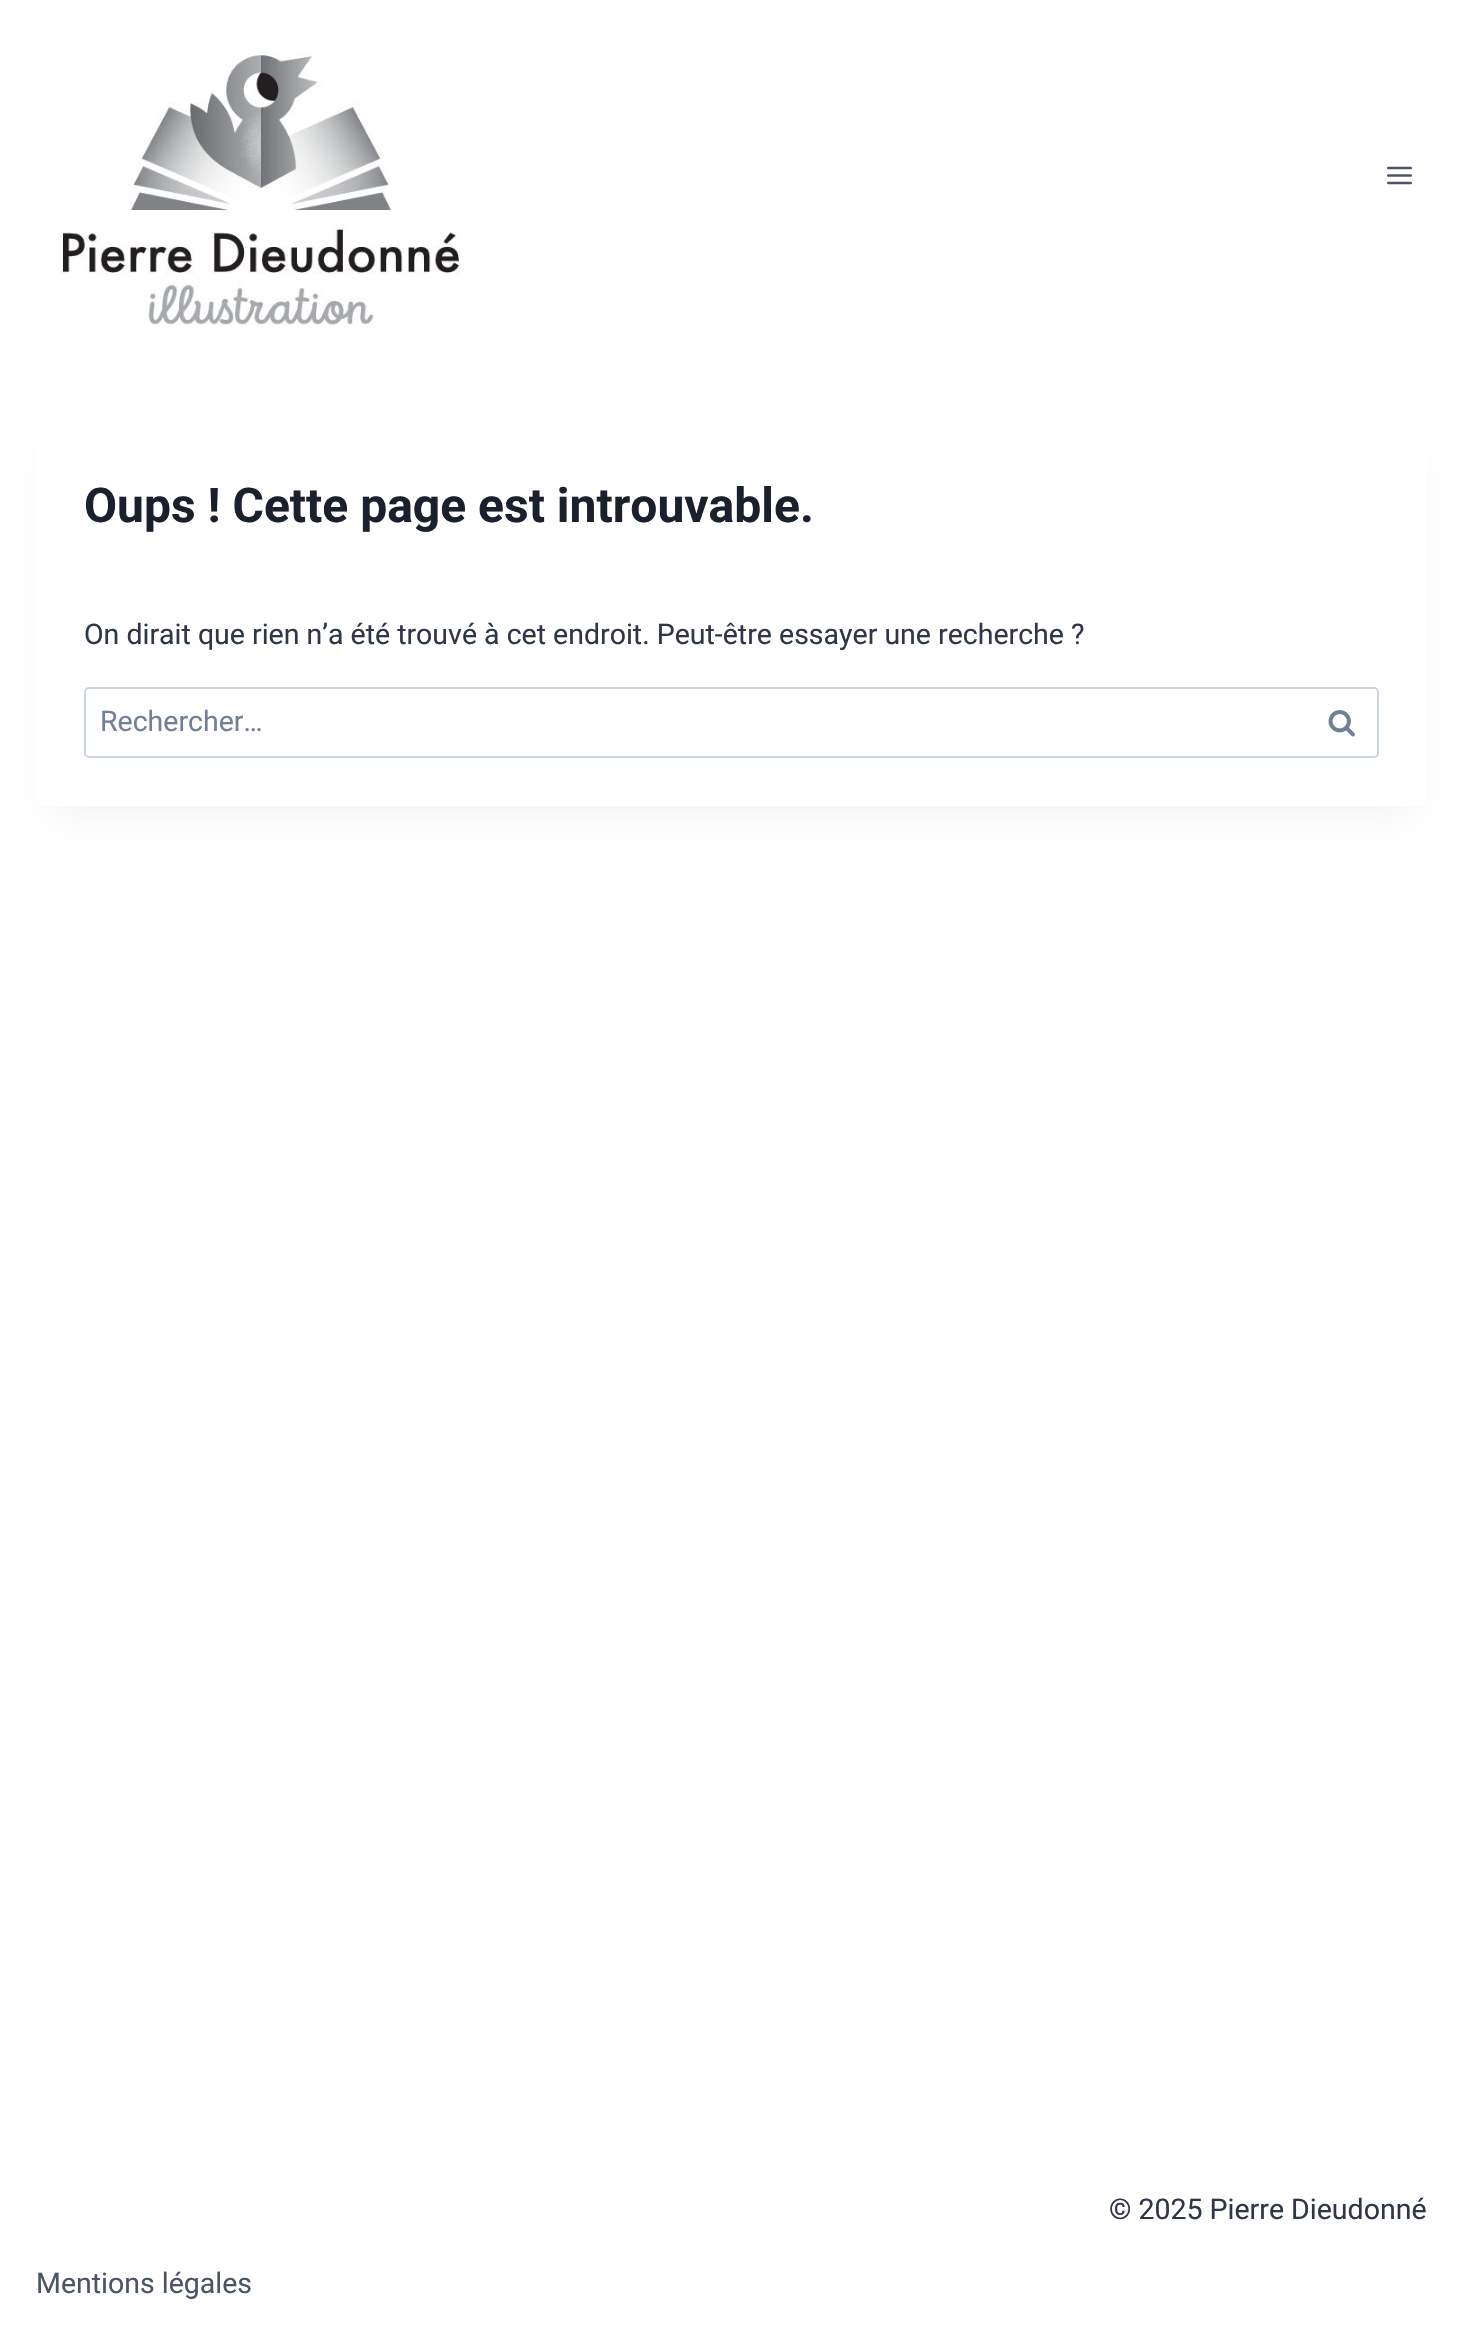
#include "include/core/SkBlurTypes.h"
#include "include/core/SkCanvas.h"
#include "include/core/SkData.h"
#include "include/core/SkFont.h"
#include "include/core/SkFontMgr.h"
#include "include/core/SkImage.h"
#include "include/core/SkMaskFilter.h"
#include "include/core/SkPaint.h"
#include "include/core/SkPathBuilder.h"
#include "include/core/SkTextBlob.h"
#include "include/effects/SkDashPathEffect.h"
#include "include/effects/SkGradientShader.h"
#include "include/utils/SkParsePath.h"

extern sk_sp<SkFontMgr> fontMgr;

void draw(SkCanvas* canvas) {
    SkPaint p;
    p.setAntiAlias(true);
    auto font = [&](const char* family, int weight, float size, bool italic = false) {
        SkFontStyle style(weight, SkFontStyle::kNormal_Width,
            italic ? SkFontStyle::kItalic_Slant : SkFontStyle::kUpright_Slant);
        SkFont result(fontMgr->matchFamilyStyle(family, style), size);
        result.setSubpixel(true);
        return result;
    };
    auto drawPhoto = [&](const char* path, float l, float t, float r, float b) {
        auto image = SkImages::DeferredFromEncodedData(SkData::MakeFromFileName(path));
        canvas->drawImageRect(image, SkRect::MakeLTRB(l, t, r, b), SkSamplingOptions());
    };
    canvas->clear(0xFFFFFFFF);
    drawPhoto("media/1.png", 58, 52, 461, 325);
    drawPhoto("media/2.png", 1387, 166, 1412, 185);
    p.setColor(0x0D000000);
    p.setMaskFilter(SkMaskFilter::MakeBlur(kNormal_SkBlurStyle, 19));
    canvas->drawRect(SkRect::MakeLTRB(51, 459, 1412, 813), p);
    p.setMaskFilter(nullptr);
    p.setColor(0xFFFFFFFF);
    canvas->drawRoundRect(SkRect::MakeLTRB(36, 422, 1427, 806), 6, 6, p);
    auto font1 = font("Roboto", 700, 48);
    p.setColor(0xFF1A202C);
    canvas->drawString("Oups ! Cette page est introuvable.", 84, 522, font1, p);
    auto font2 = font("Roboto", 400, 28.5f);
    p.setColor(0xFF2D3748);
    canvas->drawString("On dirait que rien n’a été trouvé à cet endroit. Peut-être essayer une recherche ?", 84, 644, font2, p);
    p.setStyle(SkPaint::kStroke_Style);
    p.setStrokeWidth(2);
    p.setColor(0xFFCBD5E0);
    canvas->drawRoundRect(SkRect::MakeLTRB(85, 688, 1378, 757), 4, 4, p);
    p.setStyle(SkPaint::kFill_Style);
    p.setColor(0xFF718096);
    canvas->drawString("Rechercher…", 100, 731, font2, p);
    drawPhoto("media/3.png", 1328, 710, 1355, 737);
    p.setColor(0xFF2D3748);
    canvas->drawString("© 2025 Pierre Dieudonné", 1109, 2219, font2, p);
    p.setColor(0xFF4A5568);
    canvas->drawString("Mentions légales", 36, 2293, font2, p);
}
